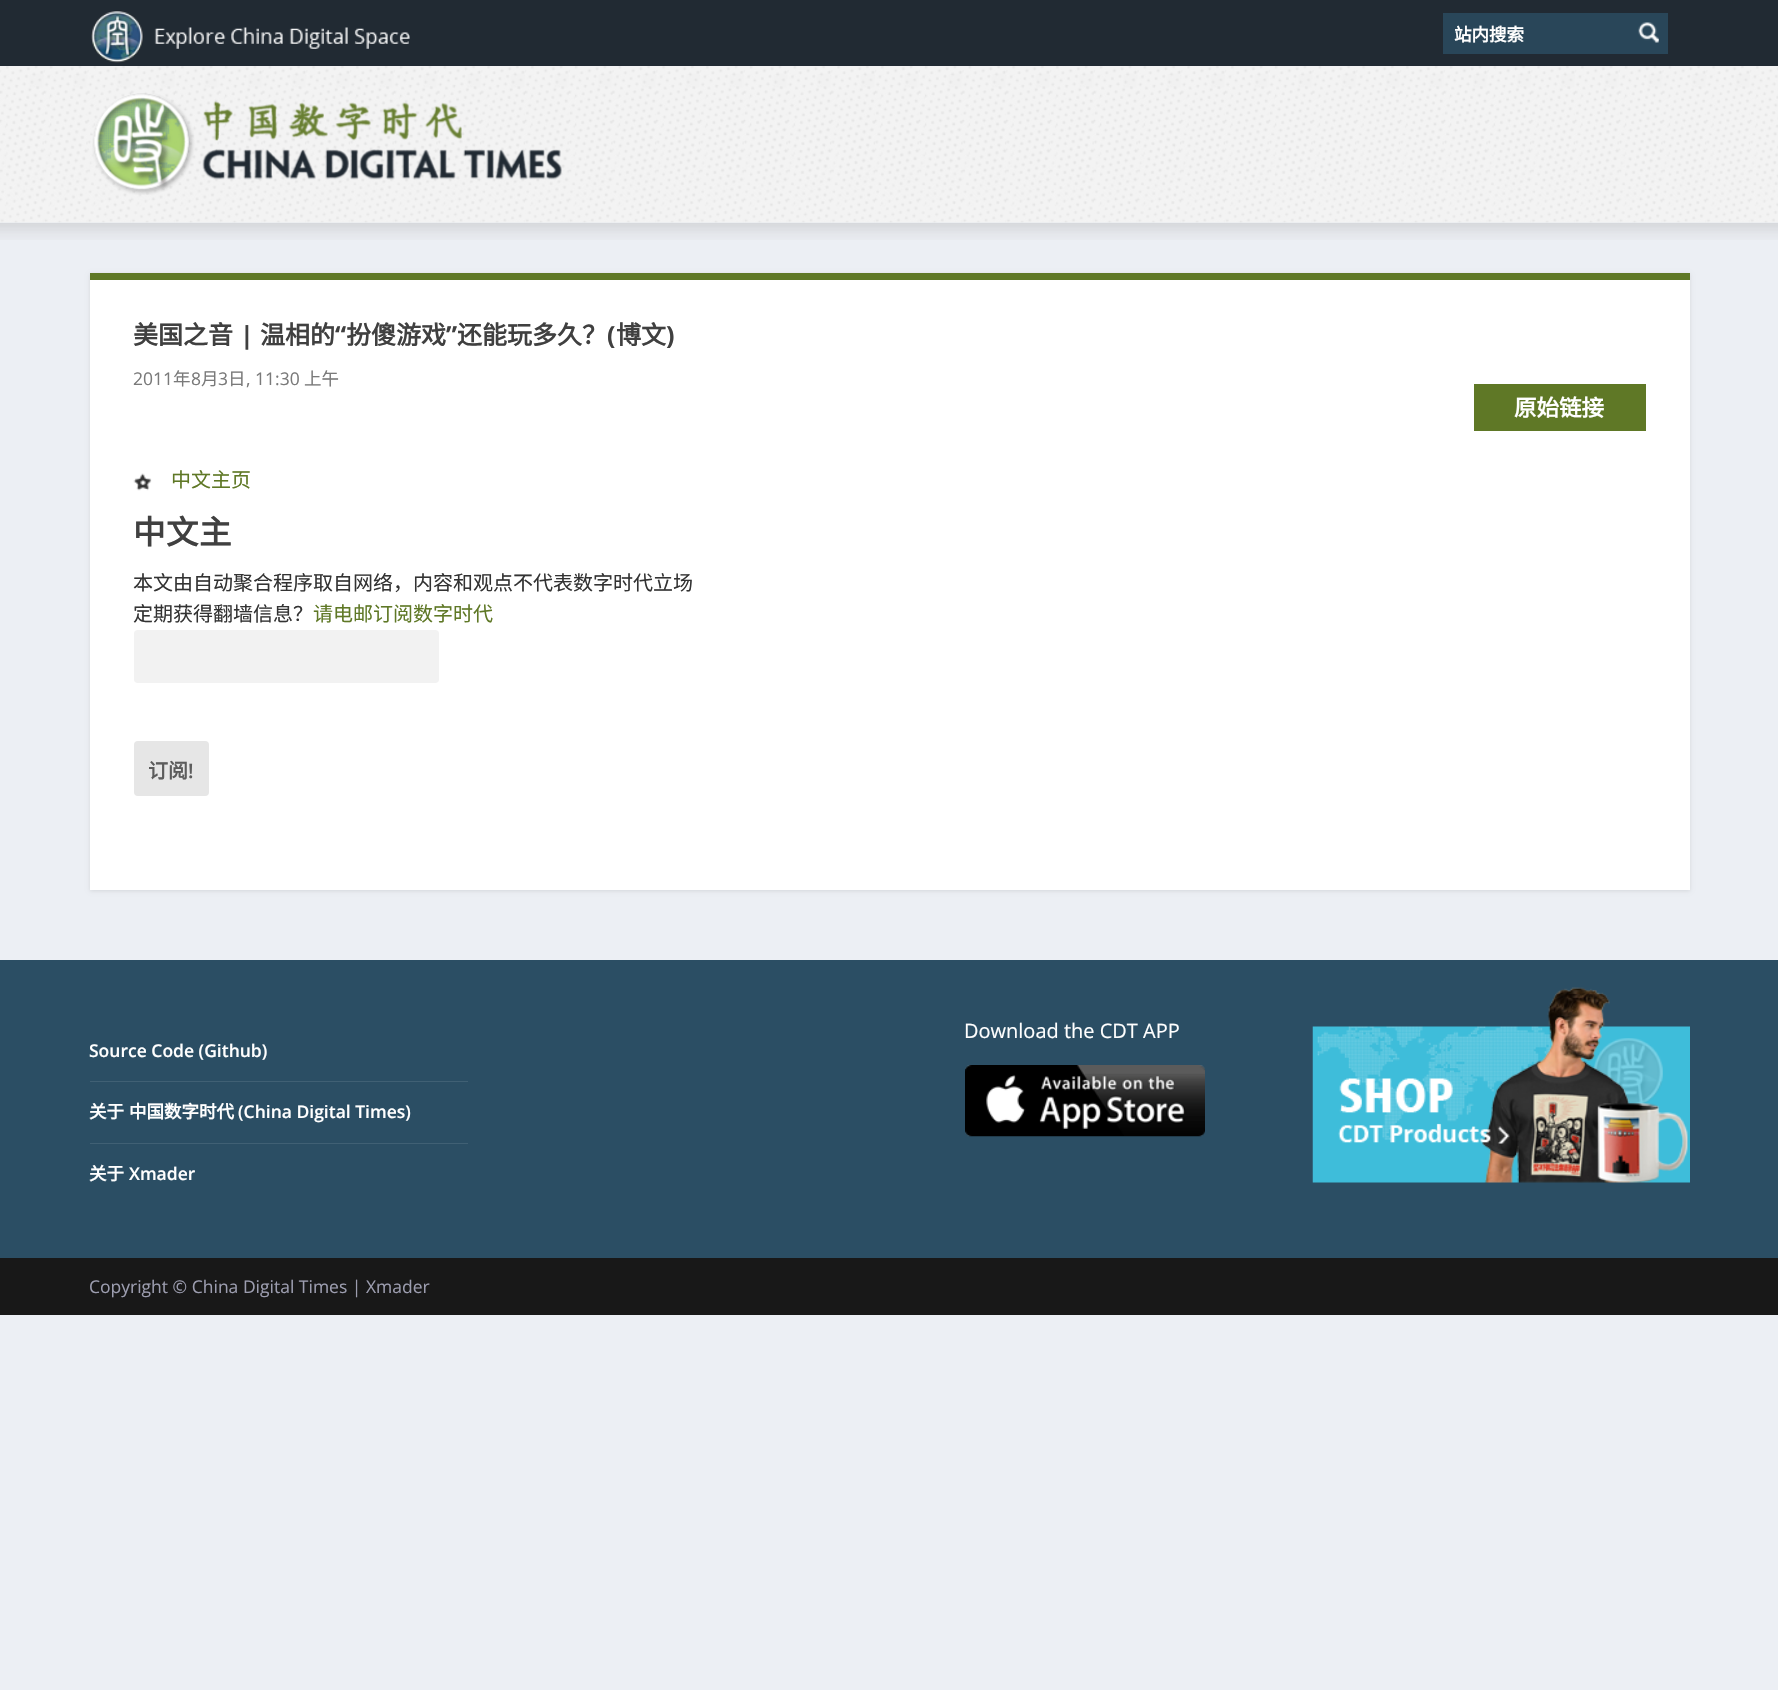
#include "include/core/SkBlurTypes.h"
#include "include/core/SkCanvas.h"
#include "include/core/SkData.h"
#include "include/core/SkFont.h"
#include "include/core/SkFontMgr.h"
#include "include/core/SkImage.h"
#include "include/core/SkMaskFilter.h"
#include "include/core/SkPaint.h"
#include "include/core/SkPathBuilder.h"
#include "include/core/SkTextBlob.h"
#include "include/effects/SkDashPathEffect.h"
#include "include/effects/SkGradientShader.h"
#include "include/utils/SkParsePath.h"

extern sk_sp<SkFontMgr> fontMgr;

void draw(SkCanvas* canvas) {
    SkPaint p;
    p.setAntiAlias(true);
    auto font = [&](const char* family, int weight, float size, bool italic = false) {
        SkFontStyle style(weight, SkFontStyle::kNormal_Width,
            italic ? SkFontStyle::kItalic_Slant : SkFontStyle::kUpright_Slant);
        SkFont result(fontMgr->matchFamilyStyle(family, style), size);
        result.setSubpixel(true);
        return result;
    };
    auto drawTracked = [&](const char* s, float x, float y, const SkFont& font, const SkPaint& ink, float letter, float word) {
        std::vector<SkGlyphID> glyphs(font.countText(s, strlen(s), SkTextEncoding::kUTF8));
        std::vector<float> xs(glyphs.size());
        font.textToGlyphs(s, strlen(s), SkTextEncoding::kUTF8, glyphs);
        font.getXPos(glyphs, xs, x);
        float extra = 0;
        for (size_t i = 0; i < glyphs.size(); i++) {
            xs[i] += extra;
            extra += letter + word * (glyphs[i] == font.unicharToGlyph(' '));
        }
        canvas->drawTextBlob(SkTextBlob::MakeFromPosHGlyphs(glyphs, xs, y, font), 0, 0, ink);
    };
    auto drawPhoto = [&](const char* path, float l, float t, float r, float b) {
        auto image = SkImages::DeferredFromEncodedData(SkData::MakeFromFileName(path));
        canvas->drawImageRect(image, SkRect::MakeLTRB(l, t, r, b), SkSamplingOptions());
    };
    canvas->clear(0xFFECEFF4);
    p.setColor(0xFF212A33);
    canvas->drawRect(SkRect::MakeLTRB(0, 0, 1778, 66), p);
    drawPhoto("media/1.png", 91, 10, 410, 63);
    p.setColor(0xFF294659);
    canvas->drawRect(SkRect::MakeLTRB(1443, 13, 1668, 54), p);
    auto font1 = font("Noto Sans CJK SC", 700, 17.5f);
    p.setColor(0xFFFFFFFF);
    canvas->drawString("站内搜索", 1454, 41, font1, p);
    drawPhoto("media/2.png", 1638, 22, 1659, 43);
    drawPhoto("media/5.png", 0, 222, 1778, 240);
    drawPhoto("media/3.png", 0, 66, 1778, 223);
    drawPhoto("media/4.png", 92, 93, 562, 195);
    p.setColor(0x1A000000);
    p.setMaskFilter(SkMaskFilter::MakeBlur(kNormal_SkBlurStyle, 2));
    canvas->drawRect(SkRect::MakeLTRB(90, 274, 1690, 891), p);
    p.setMaskFilter(nullptr);
    p.setColor(0xFFFFFFFF);
    canvas->drawRect(SkRect::MakeLTRB(90, 280, 1690, 890), p);
    p.setColor(0xFF5F7826);
    canvas->drawRect(SkRect::MakeLTRB(90, 273, 1690, 280), p);
    auto font2 = font("Noto Sans CJK SC", 700, 25);
    p.setColor(0xFF404040);
    canvas->drawString("美国之音", 133, 344, font2, p);
    auto font3 = font("Open Sans", 700, 25);
    canvas->drawString("|", 240, 344, font3, p);
    canvas->drawString("温相的", 260, 344, font2, p);
    canvas->drawString("“", 335, 344, font3, p);
    canvas->drawString("扮傻游戏", 346, 344, font2, p);
    canvas->drawString("”", 446, 344, font3, p);
    canvas->drawString("还能玩多久？", 457, 344, font2, p);
    canvas->drawString("(", 607, 344, font3, p);
    canvas->drawString("博文", 616, 344, font2, p);
    canvas->drawString(")", 666, 344, font3, p);
    auto font4 = font("Open Sans", 400, 17.5f);
    p.setColor(0xFF7A7A7A);
    canvas->drawString("2011", 133, 385, font4, p);
    auto font5 = font("Noto Sans CJK SC", 400, 17.5f);
    canvas->drawString("年", 173, 385, font5, p);
    canvas->drawString("8", 191, 385, font4, p);
    canvas->drawString("月", 201, 385, font5, p);
    canvas->drawString("3", 218, 385, font4, p);
    canvas->drawString("日", 228, 385, font5, p);
    canvas->drawString(", 11:30", 246, 385, font4, p);
    canvas->drawString("上午", 304, 385, font5, p);
    p.setColor(0xFF5F7826);
    canvas->drawRect(SkRect::MakeLTRB(1474, 384, 1646, 431), p);
    auto font6 = font("Noto Sans CJK SC", 700, 22.5f);
    p.setColor(0xFFFFFFFF);
    canvas->drawString("原始链接", 1514, 416, font6, p);
    drawPhoto("media/6.png", 133, 473, 152, 491);
    auto font7 = font("Noto Sans CJK SC", 400, 20);
    p.setColor(0xFF5F7826);
    canvas->drawString("中文主页", 171, 487, font7, p);
    auto font8 = font("Noto Sans CJK SC", 700, 32.5f);
    p.setColor(0xFF404040);
    drawTracked("中文主", 133, 544, font8, p, 0.5f, 0);
    p.setColor(0xFF333333);
    canvas->drawString("本文由自动聚合程序取自网络，内容和观点不代表数字时代立场", 133, 590, font7, p);
    canvas->drawString("定期获得翻墙信息？", 133, 621, font7, p);
    p.setColor(0xFF5F7826);
    canvas->drawString("请电邮订阅数字时代", 313, 621, font7, p);
    p.setColor(0xFFF2F2F2);
    canvas->drawRoundRect(SkRect::MakeLTRB(134, 630, 439, 683), 4, 4, p);
    p.setColor(0xFFE6E6E6);
    canvas->drawRoundRect(SkRect::MakeLTRB(134, 741, 209, 796), 4, 4, p);
    auto font9 = font("Noto Sans CJK SC", 700, 20);
    p.setColor(0xFF5C5C5C);
    canvas->drawString("订阅", 148, 778, font9, p);
    auto font10 = font("Open Sans", 600, 20);
    canvas->drawString("!", 188, 778, font10, p);
    p.setColor(0xFF2B4E64);
    canvas->drawRect(SkRect::MakeLTRB(0, 960, 1778, 1258), p);
    auto font11 = font("Open Sans", 400, 20);
    p.setColor(0xFFFFFFFF);
    canvas->drawString("Download the CDT APP", 964, 1038, font11, p);
    drawPhoto("media/7.png", 965, 1065, 1205, 1137);
    drawPhoto("media/8.png", 1312, 987, 1690, 1183);
    p.setColor(0xFF406074);
    canvas->drawRect(SkRect::MakeLTRB(90, 1081, 468, 1082), p);
    auto font12 = font("Open Sans", 600, 17.5f);
    p.setColor(0xFFFFFFFF);
    canvas->drawString("Source Code (Github)", 89, 1057, font12, p);
    p.setColor(0xFF406074);
    canvas->drawRect(SkRect::MakeLTRB(90, 1143, 468, 1144), p);
    p.setColor(0xFFFFFFFF);
    canvas->drawString("关于", 89, 1118, font1, p);
    canvas->drawString("中国数字时代", 129, 1118, font1, p);
    canvas->drawString("(China Digital Times)", 238, 1118, font12, p);
    canvas->drawString("关于", 89, 1180, font1, p);
    canvas->drawString("Xmader", 129, 1180, font12, p);
    p.setColor(0xFF181818);
    canvas->drawRect(SkRect::MakeLTRB(0, 1258, 1778, 1315), p);
    p.setColor(0xFF9C9DAF);
    canvas->drawString("Copyright © China Digital Times | Xmader", 89, 1293, font4, p);
}
